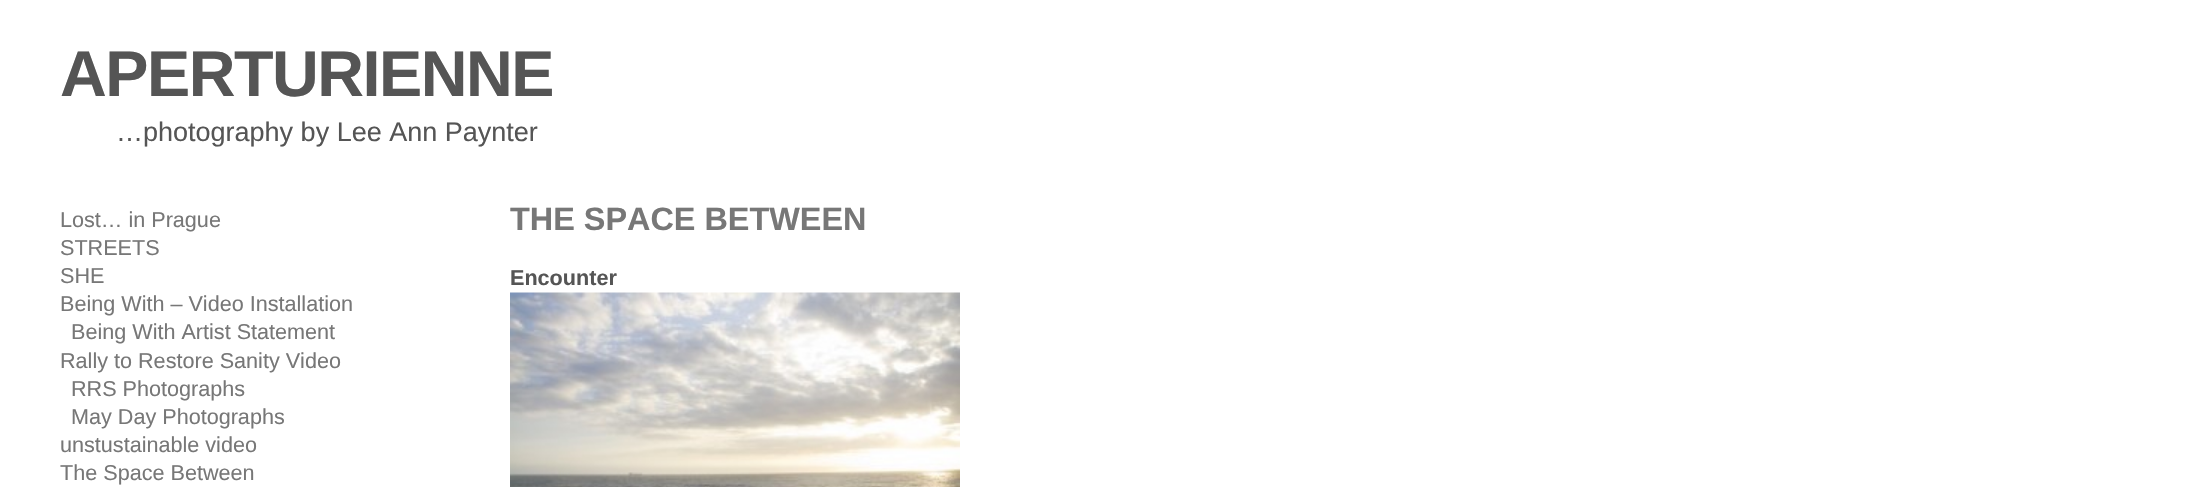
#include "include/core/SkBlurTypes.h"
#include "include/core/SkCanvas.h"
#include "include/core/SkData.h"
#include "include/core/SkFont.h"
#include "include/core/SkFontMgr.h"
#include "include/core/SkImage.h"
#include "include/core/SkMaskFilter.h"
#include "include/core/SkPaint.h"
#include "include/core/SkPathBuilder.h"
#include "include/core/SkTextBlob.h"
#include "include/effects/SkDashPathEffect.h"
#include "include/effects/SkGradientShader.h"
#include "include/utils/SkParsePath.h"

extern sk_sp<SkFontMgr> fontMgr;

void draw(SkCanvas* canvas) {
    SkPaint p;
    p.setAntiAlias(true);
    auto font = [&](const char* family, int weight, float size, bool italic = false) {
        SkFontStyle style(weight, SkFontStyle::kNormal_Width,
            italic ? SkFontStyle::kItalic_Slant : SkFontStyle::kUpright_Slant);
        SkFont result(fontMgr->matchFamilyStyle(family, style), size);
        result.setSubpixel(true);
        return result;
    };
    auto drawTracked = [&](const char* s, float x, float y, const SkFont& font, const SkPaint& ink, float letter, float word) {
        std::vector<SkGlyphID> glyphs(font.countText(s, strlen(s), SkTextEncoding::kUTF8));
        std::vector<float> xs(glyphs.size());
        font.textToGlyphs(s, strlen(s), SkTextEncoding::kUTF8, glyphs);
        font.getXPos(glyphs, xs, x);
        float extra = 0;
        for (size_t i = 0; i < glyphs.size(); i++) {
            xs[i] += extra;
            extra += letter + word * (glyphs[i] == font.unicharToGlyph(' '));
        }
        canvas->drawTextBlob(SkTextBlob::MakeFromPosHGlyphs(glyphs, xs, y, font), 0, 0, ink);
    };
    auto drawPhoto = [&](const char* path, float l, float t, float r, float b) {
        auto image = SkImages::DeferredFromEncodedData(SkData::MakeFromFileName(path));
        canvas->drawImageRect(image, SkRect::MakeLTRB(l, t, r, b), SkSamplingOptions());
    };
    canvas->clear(0xFFFFFFFF);
    auto font1 = font("Liberation Sans", 700, 64.75f);
    p.setColor(0xFF555555);
    drawTracked("APERTURIENNE", 60, 96, font1, p, -1.5f, 0);
    auto font2 = font("Liberation Sans", 400, 27);
    canvas->drawString("…photography by Lee Ann Paynter", 116, 141, font2, p);
    auto font3 = font("Liberation Sans", 400, 21.6f);
    p.setColor(0xFF777777);
    {
        const struct { const char* s; float x, y; } items[] = {
            {"Lost… in Prague", 60, 227},
            {"STREETS", 60, 255},
            {"SHE", 60, 283},
            {"Being With – Video Installation", 60, 311},
            {"Being With Artist Statement", 71, 339},
            {"Rally to Restore Sanity Video", 60, 368},
            {"RRS Photographs", 71, 396},
            {"May Day Photographs", 71, 424},
            {"unstustainable video", 60, 452},
            {"The Space Between", 60, 480},
        };
        for (auto [s, x, y] : items) {
            canvas->drawString(s, x, y, font3, p);
        }
    }
    auto font4 = font("Liberation Sans", 700, 32.4f);
    canvas->drawString("THE SPACE BETWEEN", 510, 230, font4, p);
    auto font5 = font("Liberation Sans", 700, 21.6f);
    p.setColor(0xFF555555);
    canvas->drawString("Encounter", 510, 285, font5, p);
    drawPhoto("media/1.png", 510, 292, 960, 487);
}
